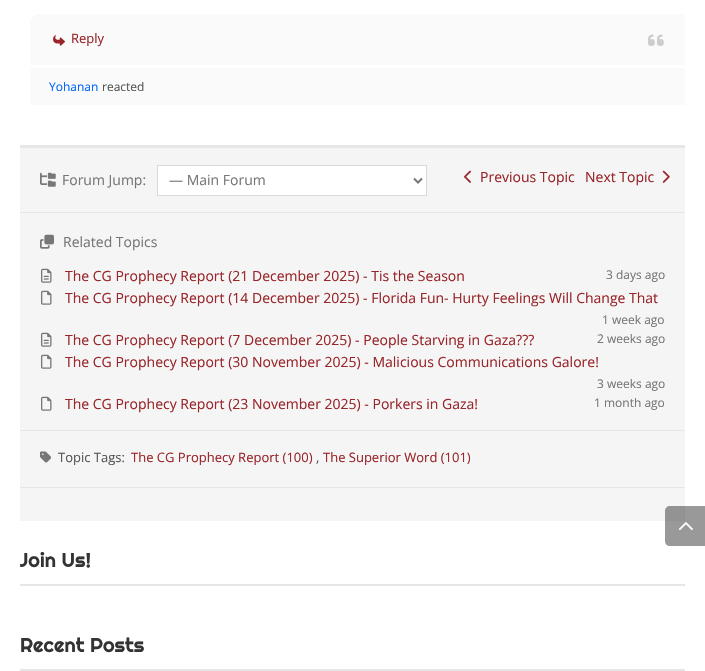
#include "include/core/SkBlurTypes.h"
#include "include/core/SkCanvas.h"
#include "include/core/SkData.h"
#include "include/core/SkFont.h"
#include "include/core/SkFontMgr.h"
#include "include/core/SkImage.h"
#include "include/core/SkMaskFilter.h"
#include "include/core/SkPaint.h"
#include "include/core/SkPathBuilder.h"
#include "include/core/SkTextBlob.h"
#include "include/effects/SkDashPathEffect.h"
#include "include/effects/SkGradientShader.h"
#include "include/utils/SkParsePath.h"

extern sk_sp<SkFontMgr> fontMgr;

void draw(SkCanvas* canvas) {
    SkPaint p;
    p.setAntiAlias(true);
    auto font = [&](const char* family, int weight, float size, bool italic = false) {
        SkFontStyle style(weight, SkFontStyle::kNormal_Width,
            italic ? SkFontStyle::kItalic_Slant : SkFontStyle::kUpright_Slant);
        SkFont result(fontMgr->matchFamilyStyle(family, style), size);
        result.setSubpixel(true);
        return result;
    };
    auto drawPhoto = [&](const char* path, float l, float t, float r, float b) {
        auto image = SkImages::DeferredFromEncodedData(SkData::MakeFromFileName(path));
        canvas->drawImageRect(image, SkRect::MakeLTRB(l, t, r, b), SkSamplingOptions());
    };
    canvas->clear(0xFFFFFFFF);
    p.setColor(0xFFFAFAFA);
    canvas->drawPath(SkPathBuilder().moveTo(40, 14).lineTo(685, 14).lineTo(685, 65).lineTo(30, 65).lineTo(30, 24).cubicTo(30, 18.5f, 34.5f, 14, 40, 14).close().detach(), p);
    drawPhoto("media/1.png", 53, 35, 65, 46);
    auto font1 = font("Open Sans", 400, 13);
    p.setColor(0xFF99262B);
    canvas->drawString("Reply", 71, 43, font1, p);
    drawPhoto("media/2.png", 648, 34, 664, 46);
    p.setColor(0xFFFAFAFA);
    canvas->drawRect(SkRect::MakeLTRB(30, 68, 685, 105), p);
    auto font2 = font("Open Sans", 400, 12);
    p.setColor(0xFF0066FF);
    canvas->drawString("Yohanan", 49, 91, font2, p);
    p.setColor(0xFF555555);
    canvas->drawString("reacted", 102, 91, font2, p);
    p.setColor(0xFFF5F5F5);
    canvas->drawRect(SkRect::MakeLTRB(20, 148, 685, 521), p);
    p.setColor(0xFFE6E6E6);
    canvas->drawRect(SkRect::MakeLTRB(20, 145, 685, 148), p);
    drawPhoto("media/3.png", 40, 172, 56, 187);
    auto font3 = font("Open Sans", 400, 14);
    p.setColor(0xFF777777);
    canvas->drawString("Forum Jump:", 62, 185, font3, p);
    p.setColor(0xFFFFFFFF);
    canvas->drawRect(SkRect::MakeLTRB(157.5f, 165.5f, 426.5f, 195.5f), p);
    p.setStyle(SkPaint::kStroke_Style);
    p.setStrokeWidth(1);
    p.setColor(0xFFDADADA);
    canvas->drawRect(SkRect::MakeLTRB(157.5f, 165.5f, 426.5f, 195.5f), p);
    p.setStrokeWidth(2);
    p.setColor(0xFF777777);
    canvas->drawPath(SkPathBuilder().moveTo(414, 178.5f).lineTo(418, 182.5f).lineTo(422, 178.5f).detach(), p);
    p.setStyle(SkPaint::kFill_Style);
    canvas->drawString("— Main Forum", 169, 185, font3, p);
    drawPhoto("media/4.png", 464, 170, 471, 183);
    p.setColor(0xFF99262B);
    canvas->drawString("Previous Topic", 480, 182, font3, p);
    canvas->drawString("Next Topic", 585, 182, font3, p);
    drawPhoto("media/5.png", 662, 170, 670, 183);
    p.setColor(0xFFE6E6E6);
    canvas->drawRect(SkRect::MakeLTRB(20, 212, 685, 213), p);
    canvas->drawRect(SkRect::MakeLTRB(20, 430, 685, 431), p);
    drawPhoto("media/6.png", 40, 234, 54, 249);
    p.setColor(0xFF777777);
    canvas->drawString("Related Topics", 63, 247, font3, p);
    drawPhoto("media/7.png", 41, 268, 52, 283);
    p.setColor(0xFF99262B);
    canvas->drawString("The CG Prophecy Report (21 December 2025) - Tis the Season", 65, 281, font3, p);
    p.setColor(0xFF777777);
    canvas->drawString("3 days ago", 606, 279, font2, p);
    drawPhoto("media/8.png", 41, 290, 52, 305);
    p.setColor(0xFF99262B);
    canvas->drawString("The CG Prophecy Report (14 December 2025) - Florida Fun- Hurty Feelings Will Change That", 65, 303, font3, p);
    p.setColor(0xFF777777);
    canvas->drawString("1 week ago", 602, 324, font2, p);
    drawPhoto("media/7.png", 41, 332, 52, 347);
    p.setColor(0xFF99262B);
    canvas->drawString("The CG Prophecy Report (7 December 2025) - People Starving in Gaza?\077?", 65, 345, font3, p);
    p.setColor(0xFF777777);
    canvas->drawString("2 weeks ago", 597, 343, font2, p);
    drawPhoto("media/8.png", 41, 354, 52, 369);
    p.setColor(0xFF99262B);
    canvas->drawString("The CG Prophecy Report (30 November 2025) - Malicious Communications Galore!", 65, 367, font3, p);
    p.setColor(0xFF777777);
    canvas->drawString("3 weeks ago", 597, 388, font2, p);
    drawPhoto("media/8.png", 41, 396, 52, 411);
    p.setColor(0xFF99262B);
    canvas->drawString("The CG Prophecy Report (23 November 2025) - Porkers in Gaza!", 65, 409, font3, p);
    p.setColor(0xFF777777);
    canvas->drawString("1 month ago", 594, 407, font2, p);
    drawPhoto("media/9.png", 40, 451, 52, 463);
    p.setColor(0xFF555555);
    canvas->drawString("Topic Tags:", 58, 462, font1, p);
    p.setColor(0xFF99262B);
    canvas->drawString("The CG Prophecy Report (100)", 131, 462, font1, p);
    p.setColor(0xFF555555);
    canvas->drawString(",", 316, 462, font1, p);
    p.setColor(0xFF99262B);
    canvas->drawString("The Superior Word (101)", 323, 462, font1, p);
    p.setColor(0xFFE6E6E6);
    canvas->drawRect(SkRect::MakeLTRB(20, 487, 685, 488), p);
    canvas->drawRect(SkRect::MakeLTRB(20, 584, 685, 586), p);
    auto font4 = font("Righteous", 400, 20);
    p.setColor(0xFF333333);
    canvas->drawString("Join Us!", 20, 567, font4, p);
    p.setColor(0xFFE6E6E6);
    canvas->drawRect(SkRect::MakeLTRB(20, 669, 685, 671), p);
    p.setColor(0xFF333333);
    canvas->drawString("Recent Posts", 20, 652, font4, p);
    p.setColor(0x66000000);
    canvas->drawPath(SkPathBuilder().moveTo(670, 506).lineTo(705, 506).lineTo(705, 546).lineTo(670, 546).cubicTo(667, 546, 665, 544, 665, 541).lineTo(665, 511).cubicTo(665, 508, 667, 506, 670, 506).close().detach(), p);
    drawPhoto("media/10.png", 679, 522, 693, 530);
}
